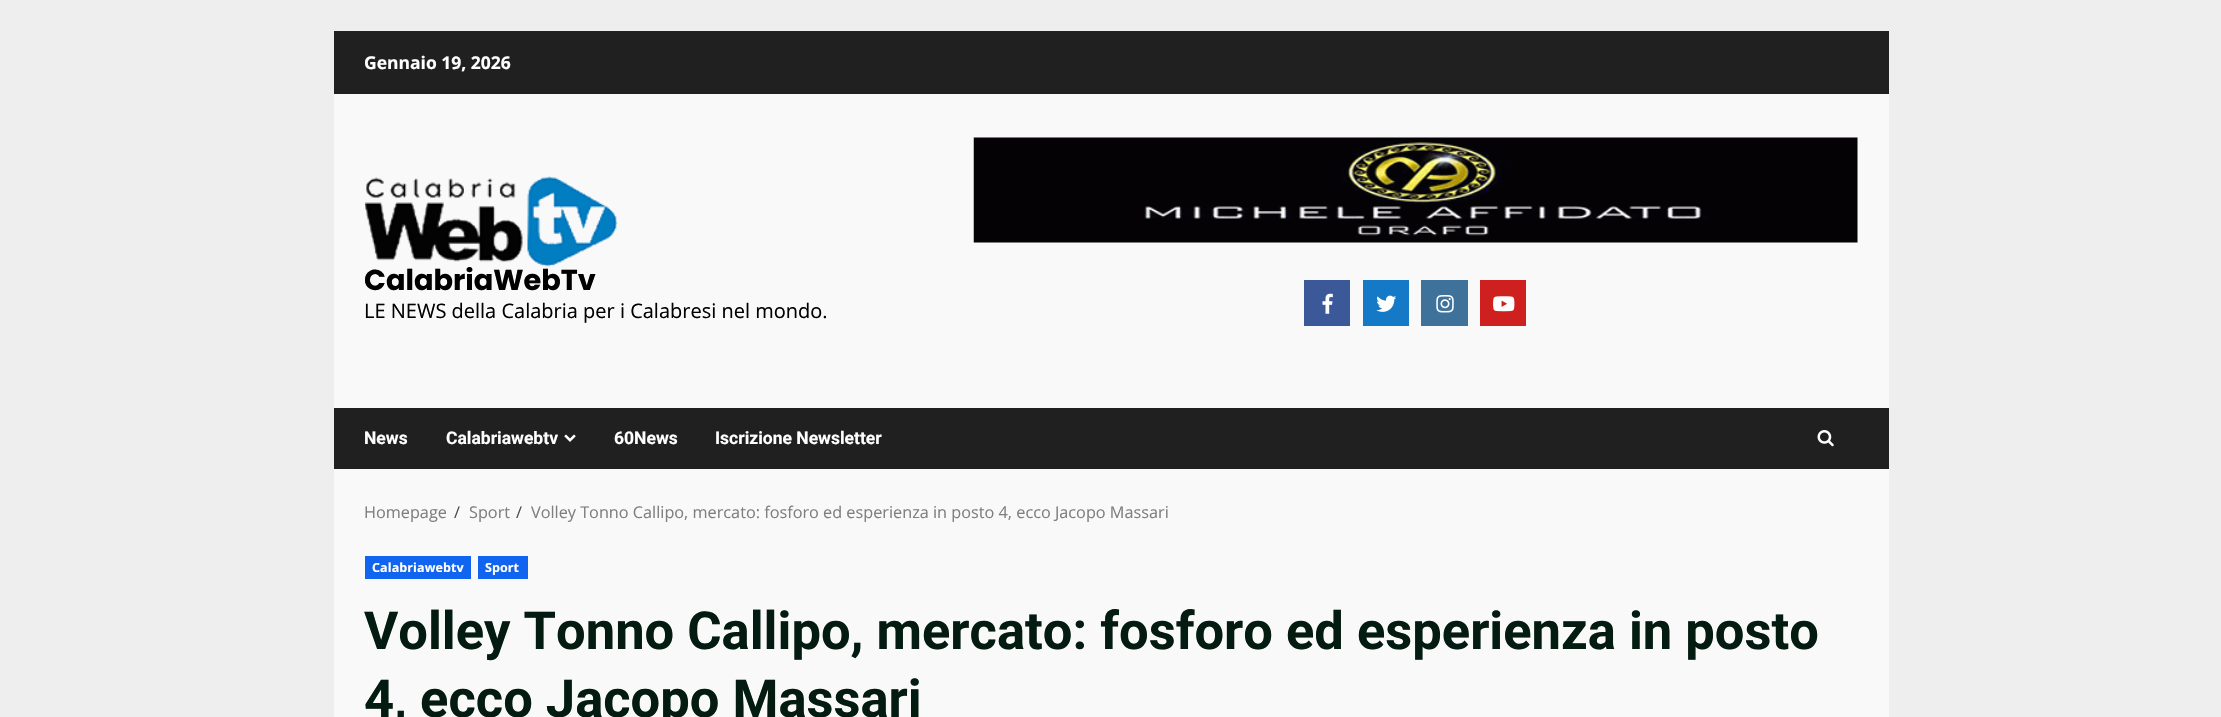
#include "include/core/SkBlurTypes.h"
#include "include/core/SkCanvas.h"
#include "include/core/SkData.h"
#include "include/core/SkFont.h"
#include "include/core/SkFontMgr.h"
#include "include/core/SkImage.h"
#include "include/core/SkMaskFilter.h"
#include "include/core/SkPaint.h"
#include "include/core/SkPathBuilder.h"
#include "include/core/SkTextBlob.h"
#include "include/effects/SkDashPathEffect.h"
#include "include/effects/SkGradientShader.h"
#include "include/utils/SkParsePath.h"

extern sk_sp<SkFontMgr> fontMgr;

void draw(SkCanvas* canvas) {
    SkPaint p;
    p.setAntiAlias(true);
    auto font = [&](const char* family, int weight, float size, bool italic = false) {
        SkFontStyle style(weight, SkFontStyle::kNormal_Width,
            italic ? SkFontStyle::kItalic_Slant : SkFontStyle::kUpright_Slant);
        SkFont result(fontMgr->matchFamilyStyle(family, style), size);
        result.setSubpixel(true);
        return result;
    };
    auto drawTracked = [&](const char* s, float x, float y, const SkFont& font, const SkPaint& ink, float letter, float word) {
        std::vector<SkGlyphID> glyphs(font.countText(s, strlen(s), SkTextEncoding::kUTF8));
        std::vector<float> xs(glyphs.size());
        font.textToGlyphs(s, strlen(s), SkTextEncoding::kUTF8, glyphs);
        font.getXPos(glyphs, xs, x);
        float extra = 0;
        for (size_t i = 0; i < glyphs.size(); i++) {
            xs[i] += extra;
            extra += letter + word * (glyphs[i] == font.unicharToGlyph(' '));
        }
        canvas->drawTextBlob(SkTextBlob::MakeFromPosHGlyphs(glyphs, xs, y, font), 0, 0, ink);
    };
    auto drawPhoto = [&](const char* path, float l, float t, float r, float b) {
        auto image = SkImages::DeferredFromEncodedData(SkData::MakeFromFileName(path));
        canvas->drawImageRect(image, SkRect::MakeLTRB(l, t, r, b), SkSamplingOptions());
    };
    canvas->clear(0xFFEEEEEE);
    p.setColor(0xFFF9F9F9);
    canvas->drawRect(SkRect::MakeLTRB(334, 94, 1889, 717), p);
    p.setColor(0xFF202020);
    canvas->drawRect(SkRect::MakeLTRB(334, 31, 1889, 94), p);
    auto font1 = font("Open Sans", 700, 17.5f);
    p.setColor(0xFFFFFFFF);
    canvas->drawString("Gennaio 19, 2026", 364, 69, font1, p);
    drawPhoto("media/1.png", 365, 176, 618, 267);
    auto font2 = font("Poppins", 700, 28.75f);
    p.setColor(0xFF000000);
    canvas->drawString("CalabriaWebTv", 364, 290, font2, p);
    auto font3 = font("Open Sans", 400, 20);
    canvas->drawString("LE NEWS della Calabria per i Calabresi nel mondo.", 364, 318, font3, p);
    drawPhoto("media/2.png", 973, 137, 1858, 243);
    p.setColor(0xFF3B5999);
    canvas->drawRect(SkRect::MakeLTRB(1304, 280, 1350, 326), p);
    drawPhoto("media/3.png", 1322, 293, 1333, 314);
    p.setColor(0xFF147AC8);
    canvas->drawRect(SkRect::MakeLTRB(1363, 280, 1409, 326), p);
    drawPhoto("media/4.png", 1376, 295, 1397, 312);
    p.setColor(0xFF3F729B);
    canvas->drawRect(SkRect::MakeLTRB(1421, 280, 1468, 326), p);
    drawPhoto("media/5.png", 1436, 295, 1454, 313);
    p.setColor(0xFFCD201F);
    canvas->drawRect(SkRect::MakeLTRB(1480, 280, 1526, 326), p);
    drawPhoto("media/6.png", 1493, 296, 1515, 312);
    p.setColor(0xFF202020);
    canvas->drawRect(SkRect::MakeLTRB(334, 408, 1889, 469), p);
    auto font4 = font("Roboto", 700, 17.5f);
    p.setColor(0xFFFFFFFF);
    canvas->drawString("News", 364, 444, font4, p);
    canvas->drawString("Calabriawebtv", 446, 444, font4, p);
    drawPhoto("media/7.png", 564, 434, 576, 442);
    canvas->drawString("60News", 614, 444, font4, p);
    canvas->drawString("Iscrizione Newsletter", 715, 444, font4, p);
    drawPhoto("media/8.png", 1817, 430, 1834, 447);
    auto font5 = font("Open Sans", 400, 16.25f);
    p.setColor(0xFF7F7F7F);
    canvas->drawString("Homepage", 364, 518, font5, p);
    p.setColor(0xFF4A4A4A);
    canvas->drawString("/", 454, 518, font5, p);
    p.setColor(0xFF7F7F7F);
    canvas->drawString("Sport", 469, 518, font5, p);
    p.setColor(0xFF4A4A4A);
    canvas->drawString("/", 516, 518, font5, p);
    p.setColor(0xFF7F7F7F);
    canvas->drawString("Volley Tonno Callipo, mercato: fosforo ed esperienza in posto 4, ecco Jacopo Massari", 531, 518, font5, p);
    p.setColor(0xFF1164F0);
    canvas->drawRect(SkRect::MakeLTRB(365, 556, 471, 579), p);
    auto font6 = font("Open Sans", 700, 12.5f);
    p.setColor(0xFFFFFFFF);
    drawTracked("Calabriawebtv", 372, 572, font6, p, 0.1f, 0);
    p.setColor(0xFF1164F0);
    canvas->drawRect(SkRect::MakeLTRB(478, 556, 528, 579), p);
    p.setColor(0xFFFFFFFF);
    drawTracked("Sport", 485, 572, font6, p, 0.1f, 0);
    auto font7 = font("Roboto", 700, 52.5f);
    p.setColor(0xFF031B11);
    canvas->drawString("Volley Tonno Callipo, mercato: fosforo ed esperienza in posto", 364, 649, font7, p);
    canvas->drawString("4, ecco Jacopo Massari", 364, 717, font7, p);
}
